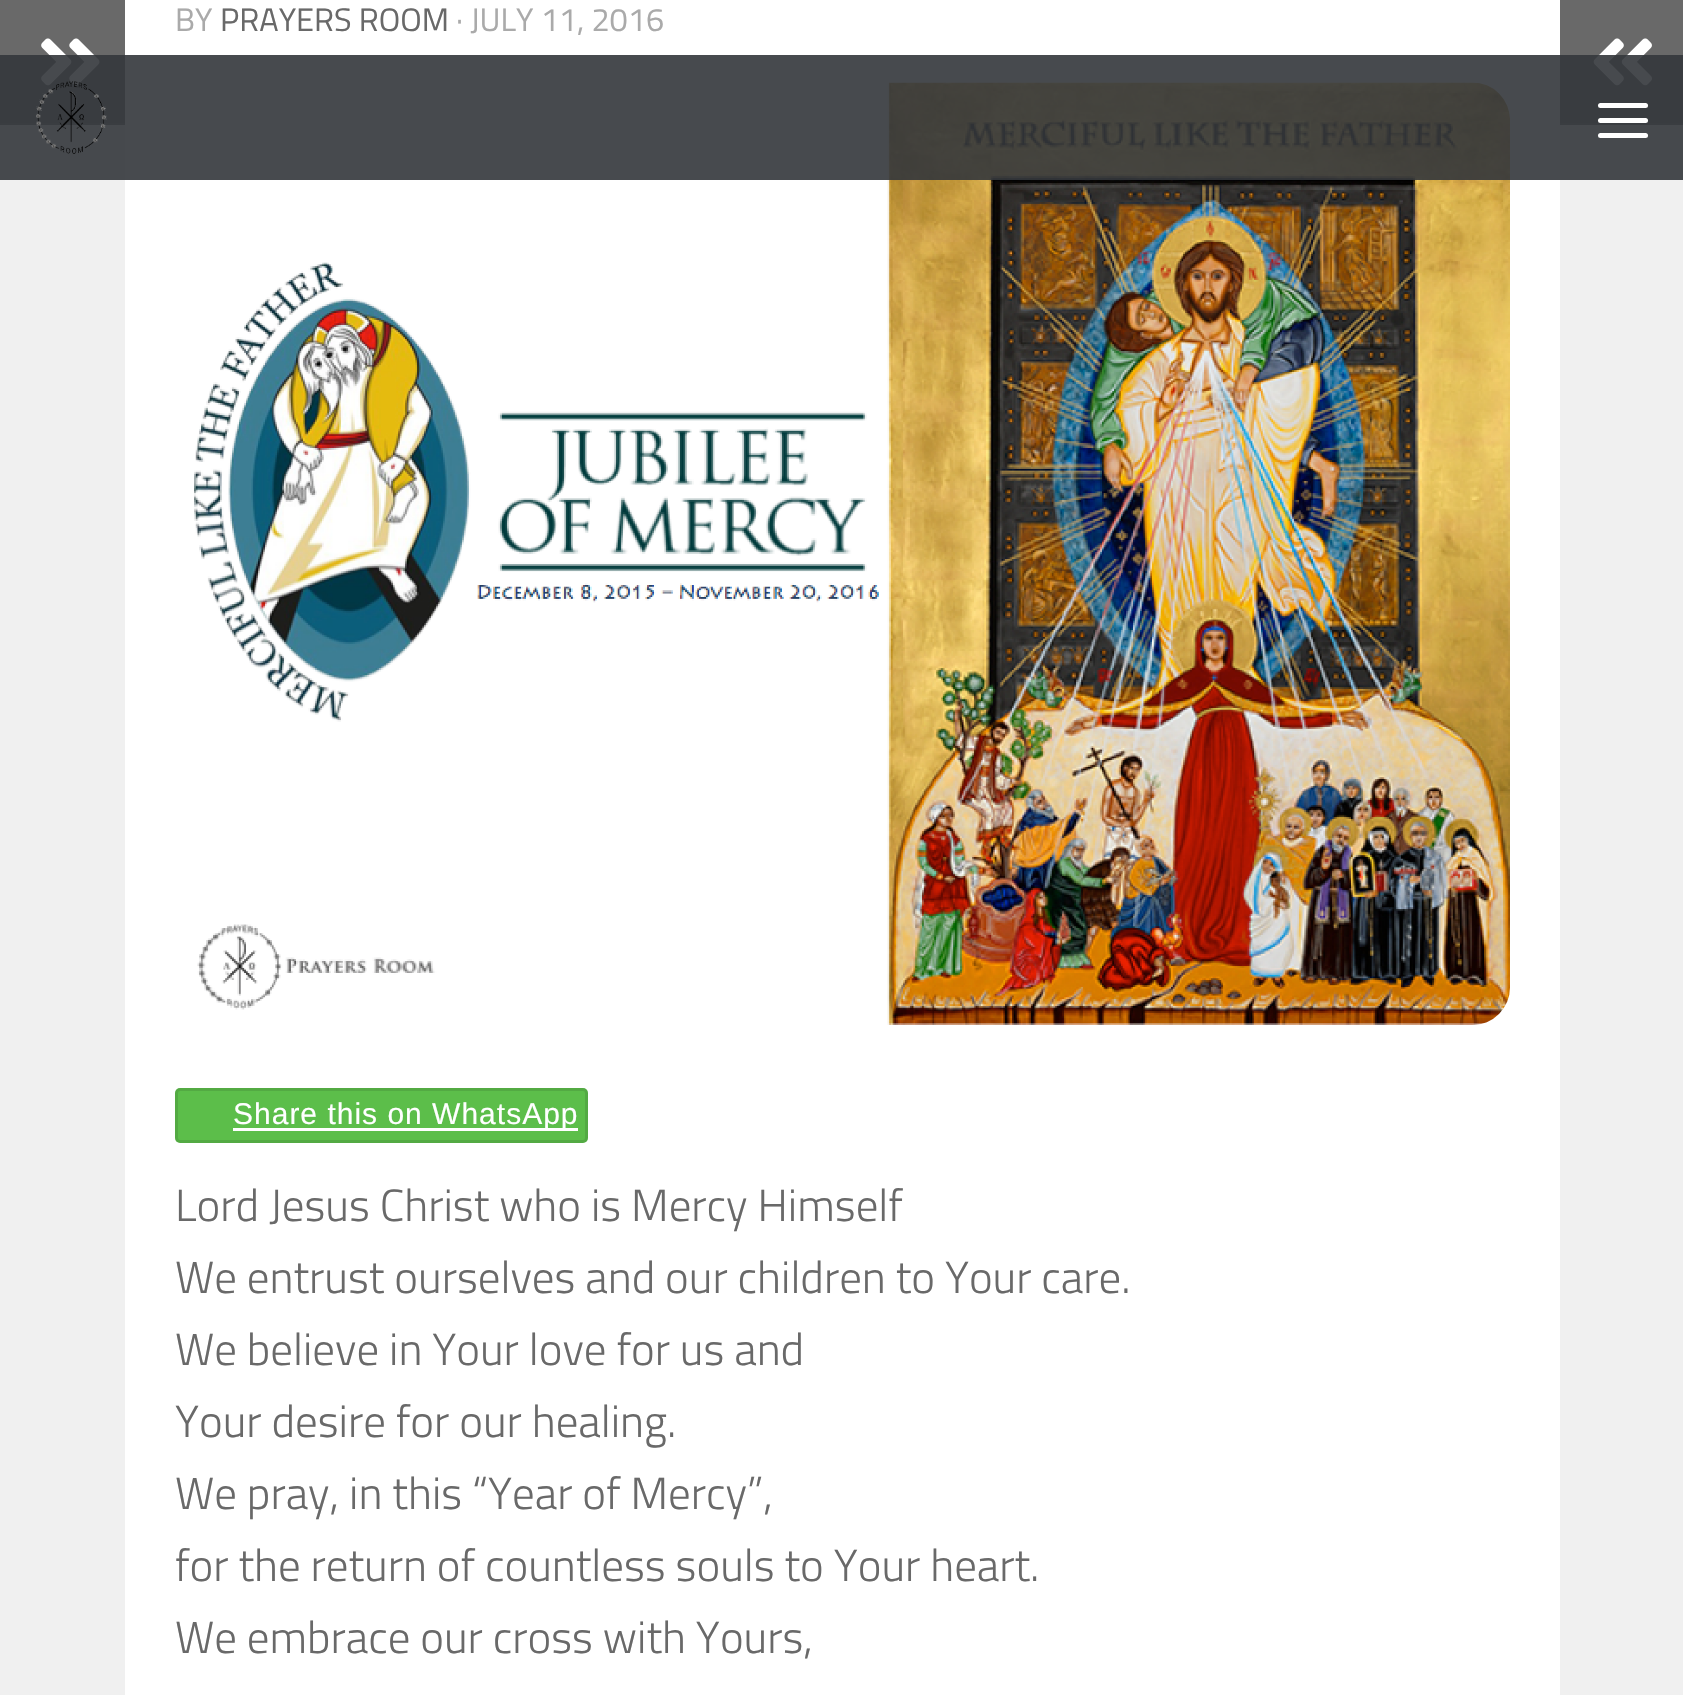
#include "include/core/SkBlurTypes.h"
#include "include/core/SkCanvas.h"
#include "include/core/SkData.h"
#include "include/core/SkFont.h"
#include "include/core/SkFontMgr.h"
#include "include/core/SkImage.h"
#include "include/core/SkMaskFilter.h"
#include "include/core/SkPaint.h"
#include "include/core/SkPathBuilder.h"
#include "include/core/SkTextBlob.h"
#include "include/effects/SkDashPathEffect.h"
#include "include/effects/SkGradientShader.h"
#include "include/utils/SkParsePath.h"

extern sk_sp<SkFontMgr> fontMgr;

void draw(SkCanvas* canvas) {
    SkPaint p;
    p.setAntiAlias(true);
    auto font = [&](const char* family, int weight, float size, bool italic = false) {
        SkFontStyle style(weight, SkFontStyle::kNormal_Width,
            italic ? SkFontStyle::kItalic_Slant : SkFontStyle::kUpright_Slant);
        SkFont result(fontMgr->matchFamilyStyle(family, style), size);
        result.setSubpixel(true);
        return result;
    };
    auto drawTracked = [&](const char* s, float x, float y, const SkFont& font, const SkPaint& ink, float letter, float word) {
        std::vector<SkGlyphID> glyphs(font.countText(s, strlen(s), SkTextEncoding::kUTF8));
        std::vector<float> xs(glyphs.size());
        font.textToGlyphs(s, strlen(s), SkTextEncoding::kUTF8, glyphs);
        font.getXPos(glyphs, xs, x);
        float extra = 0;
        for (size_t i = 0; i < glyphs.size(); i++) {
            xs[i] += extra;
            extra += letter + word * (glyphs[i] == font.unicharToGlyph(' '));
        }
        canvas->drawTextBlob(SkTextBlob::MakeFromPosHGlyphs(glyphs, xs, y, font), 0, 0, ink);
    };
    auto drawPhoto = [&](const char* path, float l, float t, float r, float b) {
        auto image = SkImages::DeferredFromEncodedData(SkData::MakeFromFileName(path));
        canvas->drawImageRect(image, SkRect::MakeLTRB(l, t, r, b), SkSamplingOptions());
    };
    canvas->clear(0xFFFFFFFF);
    {
        const struct { float l, t, r, b; SkColor color; } items[] = {
            {0, 125, 125, 1695, 0xFFF0F0F0},
            {0, 0, 125, 125, 0xFF696969},
            {0, 123, 125, 125, 0x1AFFFFFF},
        };
        for (auto [l, t, r, b, color] : items) {
            p.setColor(color);
            canvas->drawRect(SkRect::MakeLTRB(l, t, r, b), p);
        }
    }
    drawPhoto("media/1.png", 41, 38, 100, 86);
    auto font1 = font("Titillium", 400, 32.5f);
    p.setColor(0xFFAAAAAA);
    canvas->drawString("BY", 175, 31, font1, p);
    p.setColor(0xFF696969);
    canvas->drawString("PRAYERS ROOM", 220, 31, font1, p);
    p.setColor(0xFFAAAAAA);
    canvas->drawString("· JULY 11, 2016", 456, 31, font1, p);
    drawPhoto("media/2.png", 194, 82, 1510, 1025);
    p.setColor(0xFF5CBE4A);
    canvas->drawRoundRect(SkRect::MakeLTRB(175, 1088, 588, 1143), 5, 5, p);
    p.setStyle(SkPaint::kStroke_Style);
    p.setStrokeWidth(3);
    p.setColor(0x1A000000);
    canvas->drawRoundRect(SkRect::MakeLTRB(176.5f, 1089.5f, 586.5f, 1141.5f), 3.5f, 3.5f, p);
    p.setStyle(SkPaint::kFill_Style);
    p.setColor(0xFFFFFFFF);
    canvas->drawRect(SkRect::MakeLTRB(233, 1128, 578, 1131), p);
    auto font2 = font("Liberation Sans", 400, 30);
    drawTracked("Share this on WhatsApp", 233, 1124, font2, p, 1, 0);
    auto font3 = font("Titillium", 300, 45);
    p.setColor(0xFF696969);
    {
        const struct { const char* s; float x, y; } items[] = {
            {"Lord Jesus Christ who is Mercy Himself", 175, 1221},
            {"We entrust ourselves and our children to Your care.", 175, 1293},
            {"We believe in Your love for us and", 175, 1365},
            {"Your desire for our healing.", 175, 1437},
            {"We pray, in this “Year of Mercy”,", 175, 1509},
            {"for the return of countless souls to Your heart.", 175, 1581},
            {"We embrace our cross with Yours,", 175, 1653},
        };
        for (auto [s, x, y] : items) {
            canvas->drawString(s, x, y, font3, p);
        }
    }
    canvas->drawRect(SkRect::MakeLTRB(1560, 0, 1683, 125), p);
    p.setColor(0x1AFFFFFF);
    canvas->drawRect(SkRect::MakeLTRB(1560, 123, 1683, 125), p);
    drawPhoto("media/3.png", 1593, 38, 1652, 86);
    p.setColor(0xFFF0F0F0);
    canvas->drawRect(SkRect::MakeLTRB(1560, 125, 1683, 1695), p);
    p.setColor(0xE633363B);
    canvas->drawRect(SkRect::MakeLTRB(0, 55, 1683, 180), p);
    drawPhoto("media/4.png", 36, 81, 107, 154);
    p.setColor(0xFFFFFFFF);
    canvas->drawRoundRect(SkRect::MakeLTRB(1598, 103, 1648, 108), 2.5f, 2.5f, p);
    canvas->drawRoundRect(SkRect::MakeLTRB(1598, 118, 1648, 123), 2.5f, 2.5f, p);
    canvas->drawRoundRect(SkRect::MakeLTRB(1598, 133, 1648, 138), 2.5f, 2.5f, p);
}
